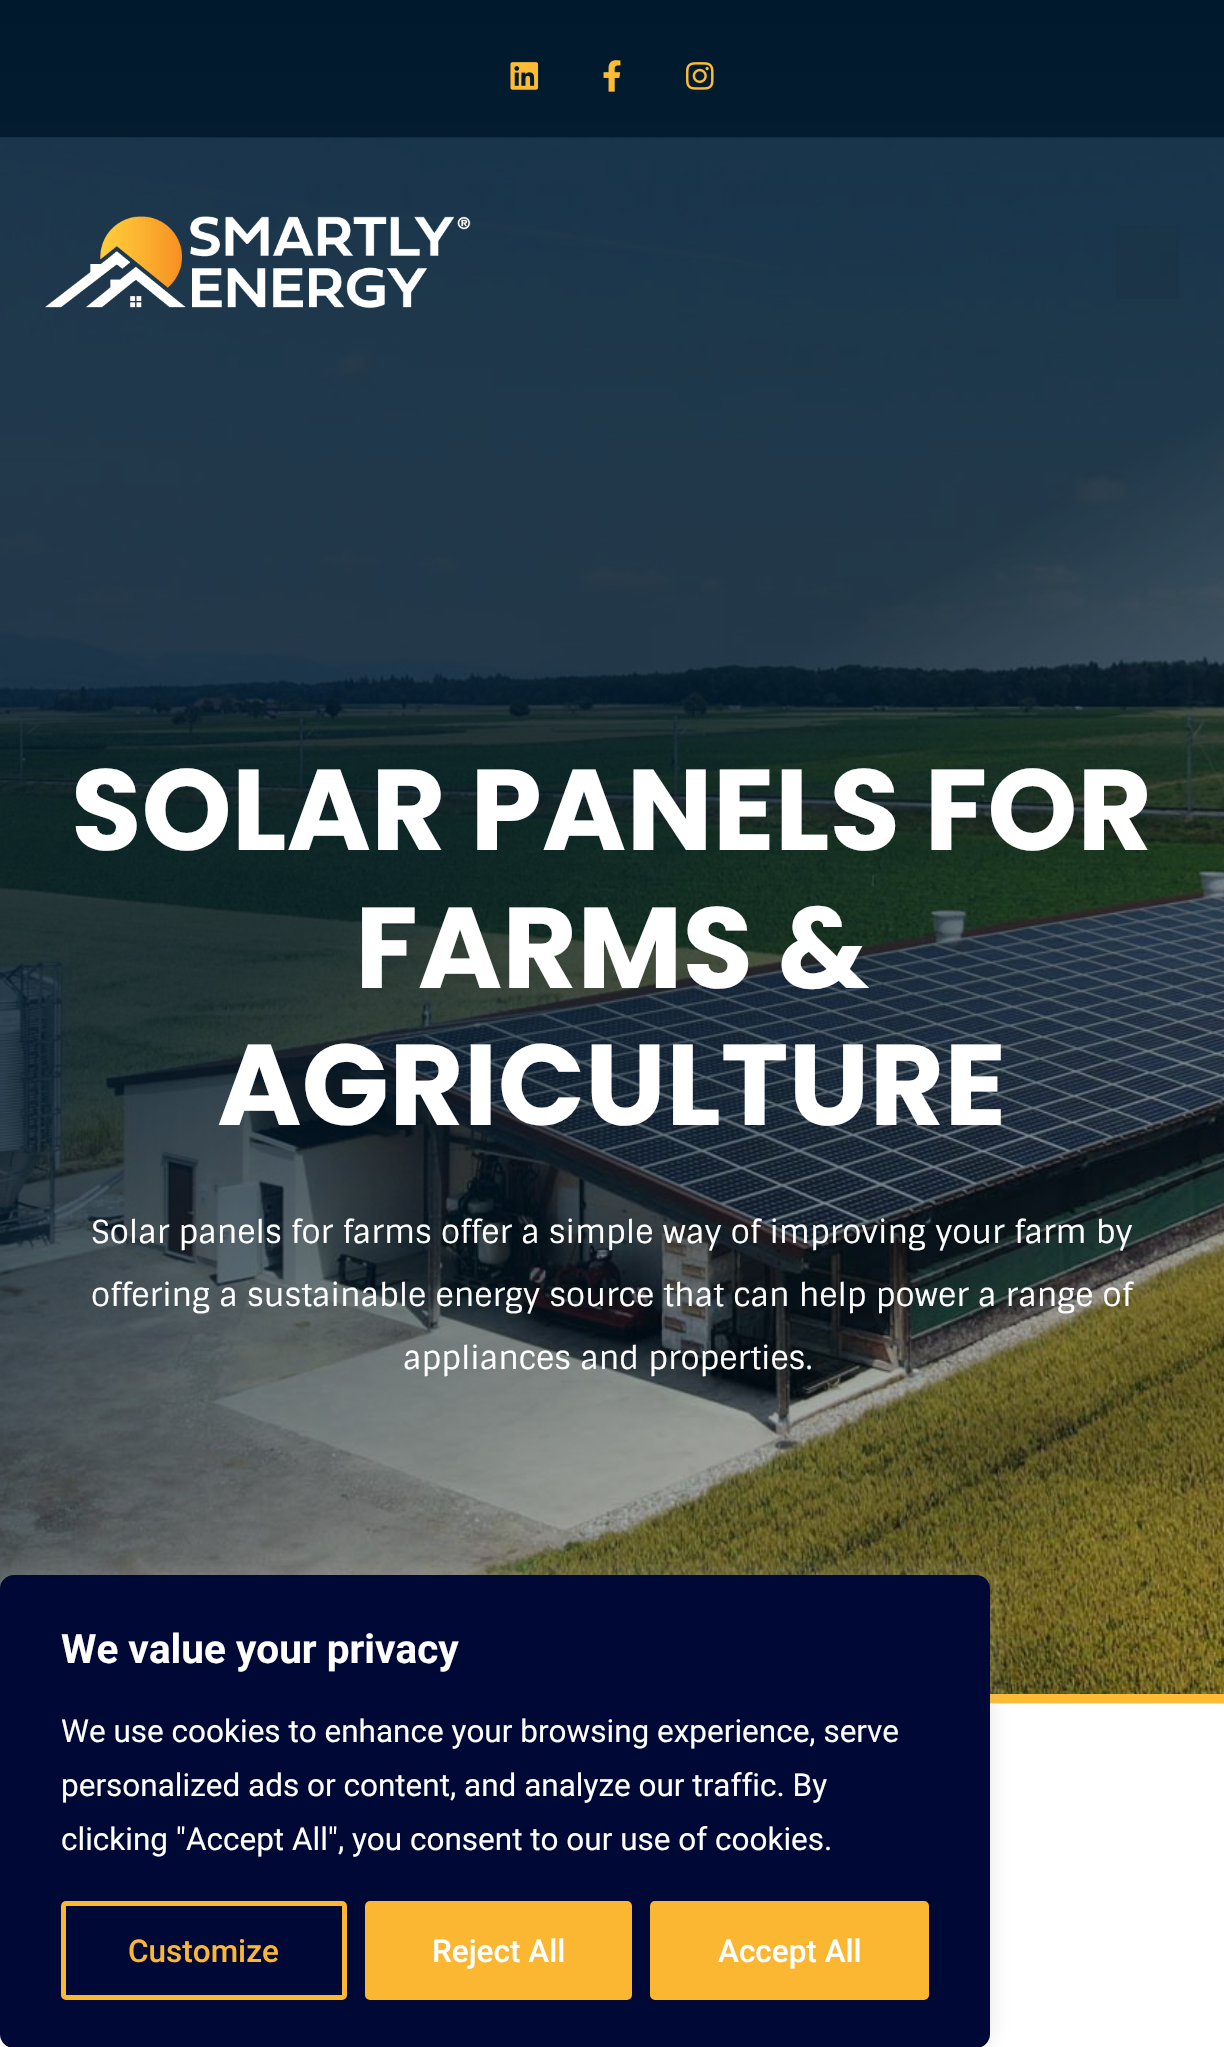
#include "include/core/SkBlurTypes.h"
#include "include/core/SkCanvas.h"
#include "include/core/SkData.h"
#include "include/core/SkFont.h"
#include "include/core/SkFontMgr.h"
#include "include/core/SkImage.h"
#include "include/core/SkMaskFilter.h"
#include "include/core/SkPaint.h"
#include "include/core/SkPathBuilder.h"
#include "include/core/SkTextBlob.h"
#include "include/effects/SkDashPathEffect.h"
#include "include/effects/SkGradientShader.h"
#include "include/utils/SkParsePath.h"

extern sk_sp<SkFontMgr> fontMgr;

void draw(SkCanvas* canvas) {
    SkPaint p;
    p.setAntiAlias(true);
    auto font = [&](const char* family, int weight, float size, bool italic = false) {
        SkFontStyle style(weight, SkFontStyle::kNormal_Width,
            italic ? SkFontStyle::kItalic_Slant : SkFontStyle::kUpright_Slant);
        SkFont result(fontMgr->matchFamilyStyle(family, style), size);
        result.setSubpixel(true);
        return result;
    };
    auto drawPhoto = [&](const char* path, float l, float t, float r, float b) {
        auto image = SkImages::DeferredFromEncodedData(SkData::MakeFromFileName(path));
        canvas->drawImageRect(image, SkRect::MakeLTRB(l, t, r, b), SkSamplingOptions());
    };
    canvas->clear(0xFFFFFFFF);
    {
        const SkColor colors[] = {0xFF00192D, 0xFF031C30};
        const float stops[] = {0, 1};
        const SkPoint ends[] = {{612, 0}, {612, 146}};
        p.setShader(SkGradientShader::MakeLinear(ends, colors, stops, 2, SkTileMode::kClamp));
        p.setAlpha(255);
    }
    canvas->drawRect(SkRect::MakeLTRB(0, 0, 1224, 138), p);
    drawPhoto("media/1.png", 510, 62, 539, 90);
    drawPhoto("media/2.png", 603, 60, 621, 92);
    drawPhoto("media/3.png", 685, 62, 714, 90);
    drawPhoto("media/5.png", 0, 137, 1224, 1704);
    {
        const SkColor colors[] = {0x0000182A, 0xCC00182A};
        const float stops[] = {0, 0.57f};
        const SkPoint ends[] = {{1102, 1765}, {122, 67}};
        p.setShader(SkGradientShader::MakeLinear(ends, colors, stops, 2, SkTileMode::kClamp));
        p.setAlpha(255);
    }
    canvas->drawRect(SkRect::MakeLTRB(0, 137, 1224, 1694), p);
    drawPhoto("media/4.png", 45, 216, 471, 309);
    p.setShader(nullptr);
    p.setColor(0x0D000000);
    canvas->drawRect(SkRect::MakeLTRB(1116, 225, 1179, 299), p);
    p.setColor(0xFFFDBC34);
    canvas->drawRect(SkRect::MakeLTRB(990, 1694, 1224, 1703), p);
    auto font1 = font("Poppins", 700, 114.75f);
    p.setColor(0xFFFFFFFF);
    {
        const struct { const char* s; float x, y; } items[] = {
            {"SOLAR PANELS FOR", 71, 850},
            {"FARMS &", 355, 988},
            {"AGRICULTURE", 217, 1125},
        };
        for (auto [s, x, y] : items) {
            canvas->drawString(s, x, y, font1, p);
        }
    }
    auto font2 = font("Sintony", 400, 31.5f);
    {
        const struct { const char* s; float x, y; } items[] = {
            {"Solar panels for farms offer a simple way of improving your farm by", 91, 1243},
            {"offering a sustainable energy source that can help power a range of", 91, 1306},
            {"appliances and properties.", 403, 1369},
        };
        for (auto [s, x, y] : items) {
            canvas->drawString(s, x, y, font2, p);
        }
    }
    p.setColor(0x4DACABAB);
    p.setMaskFilter(SkMaskFilter::MakeBlur(kNormal_SkBlurStyle, 11));
    canvas->drawRoundRect(SkRect::MakeLTRB(0, 1573, 990, 2045), 14, 14, p);
    p.setMaskFilter(nullptr);
    p.setColor(0xFF000835);
    canvas->drawRoundRect(SkRect::MakeLTRB(1, 1576, 989, 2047), 13, 13, p);
    p.setStyle(SkPaint::kStroke_Style);
    p.setStrokeWidth(2);
    canvas->drawRoundRect(SkRect::MakeLTRB(1, 1576, 989, 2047), 13, 13, p);
    auto font3 = font("Roboto", 700, 40.5f);
    p.setStyle(SkPaint::kFill_Style);
    p.setColor(0xFFFFFFFF);
    canvas->drawString("We value your privacy", 61, 1663, font3, p);
    auto font4 = font("Roboto", 400, 31.5f);
    {
        const struct { const char* s; float x, y; } items[] = {
            {"We use cookies to enhance your browsing experience, serve", 61, 1742},
            {"personalized ads or content, and analyze our traffic. By", 61, 1796},
            {"clicking \"Accept All\", you consent to our use of cookies.", 61, 1850},
        };
        for (auto [s, x, y] : items) {
            canvas->drawString(s, x, y, font4, p);
        }
    }
    p.setStyle(SkPaint::kStroke_Style);
    p.setStrokeWidth(5);
    p.setColor(0xFFFCB732);
    canvas->drawRoundRect(SkRect::MakeLTRB(63.5f, 1903.5f, 344.5f, 1997.5f), 2.5f, 2.5f, p);
    auto font5 = font("Roboto", 500, 31.5f);
    p.setStyle(SkPaint::kFill_Style);
    canvas->drawString("Customize", 128, 1962, font5, p);
    canvas->drawRoundRect(SkRect::MakeLTRB(367.5f, 1903.5f, 629.5f, 1997.5f), 2.5f, 2.5f, p);
    p.setStyle(SkPaint::kStroke_Style);
    canvas->drawRoundRect(SkRect::MakeLTRB(367.5f, 1903.5f, 629.5f, 1997.5f), 2.5f, 2.5f, p);
    p.setStyle(SkPaint::kFill_Style);
    p.setColor(0xFFFFFFFF);
    canvas->drawString("Reject All", 432, 1962, font5, p);
    p.setColor(0xFFFCB732);
    canvas->drawRoundRect(SkRect::MakeLTRB(652.5f, 1903.5f, 926.5f, 1997.5f), 2.5f, 2.5f, p);
    p.setStyle(SkPaint::kStroke_Style);
    canvas->drawRoundRect(SkRect::MakeLTRB(652.5f, 1903.5f, 926.5f, 1997.5f), 2.5f, 2.5f, p);
    p.setStyle(SkPaint::kFill_Style);
    p.setColor(0xFFFFFFFF);
    canvas->drawString("Accept All", 718, 1962, font5, p);
}
